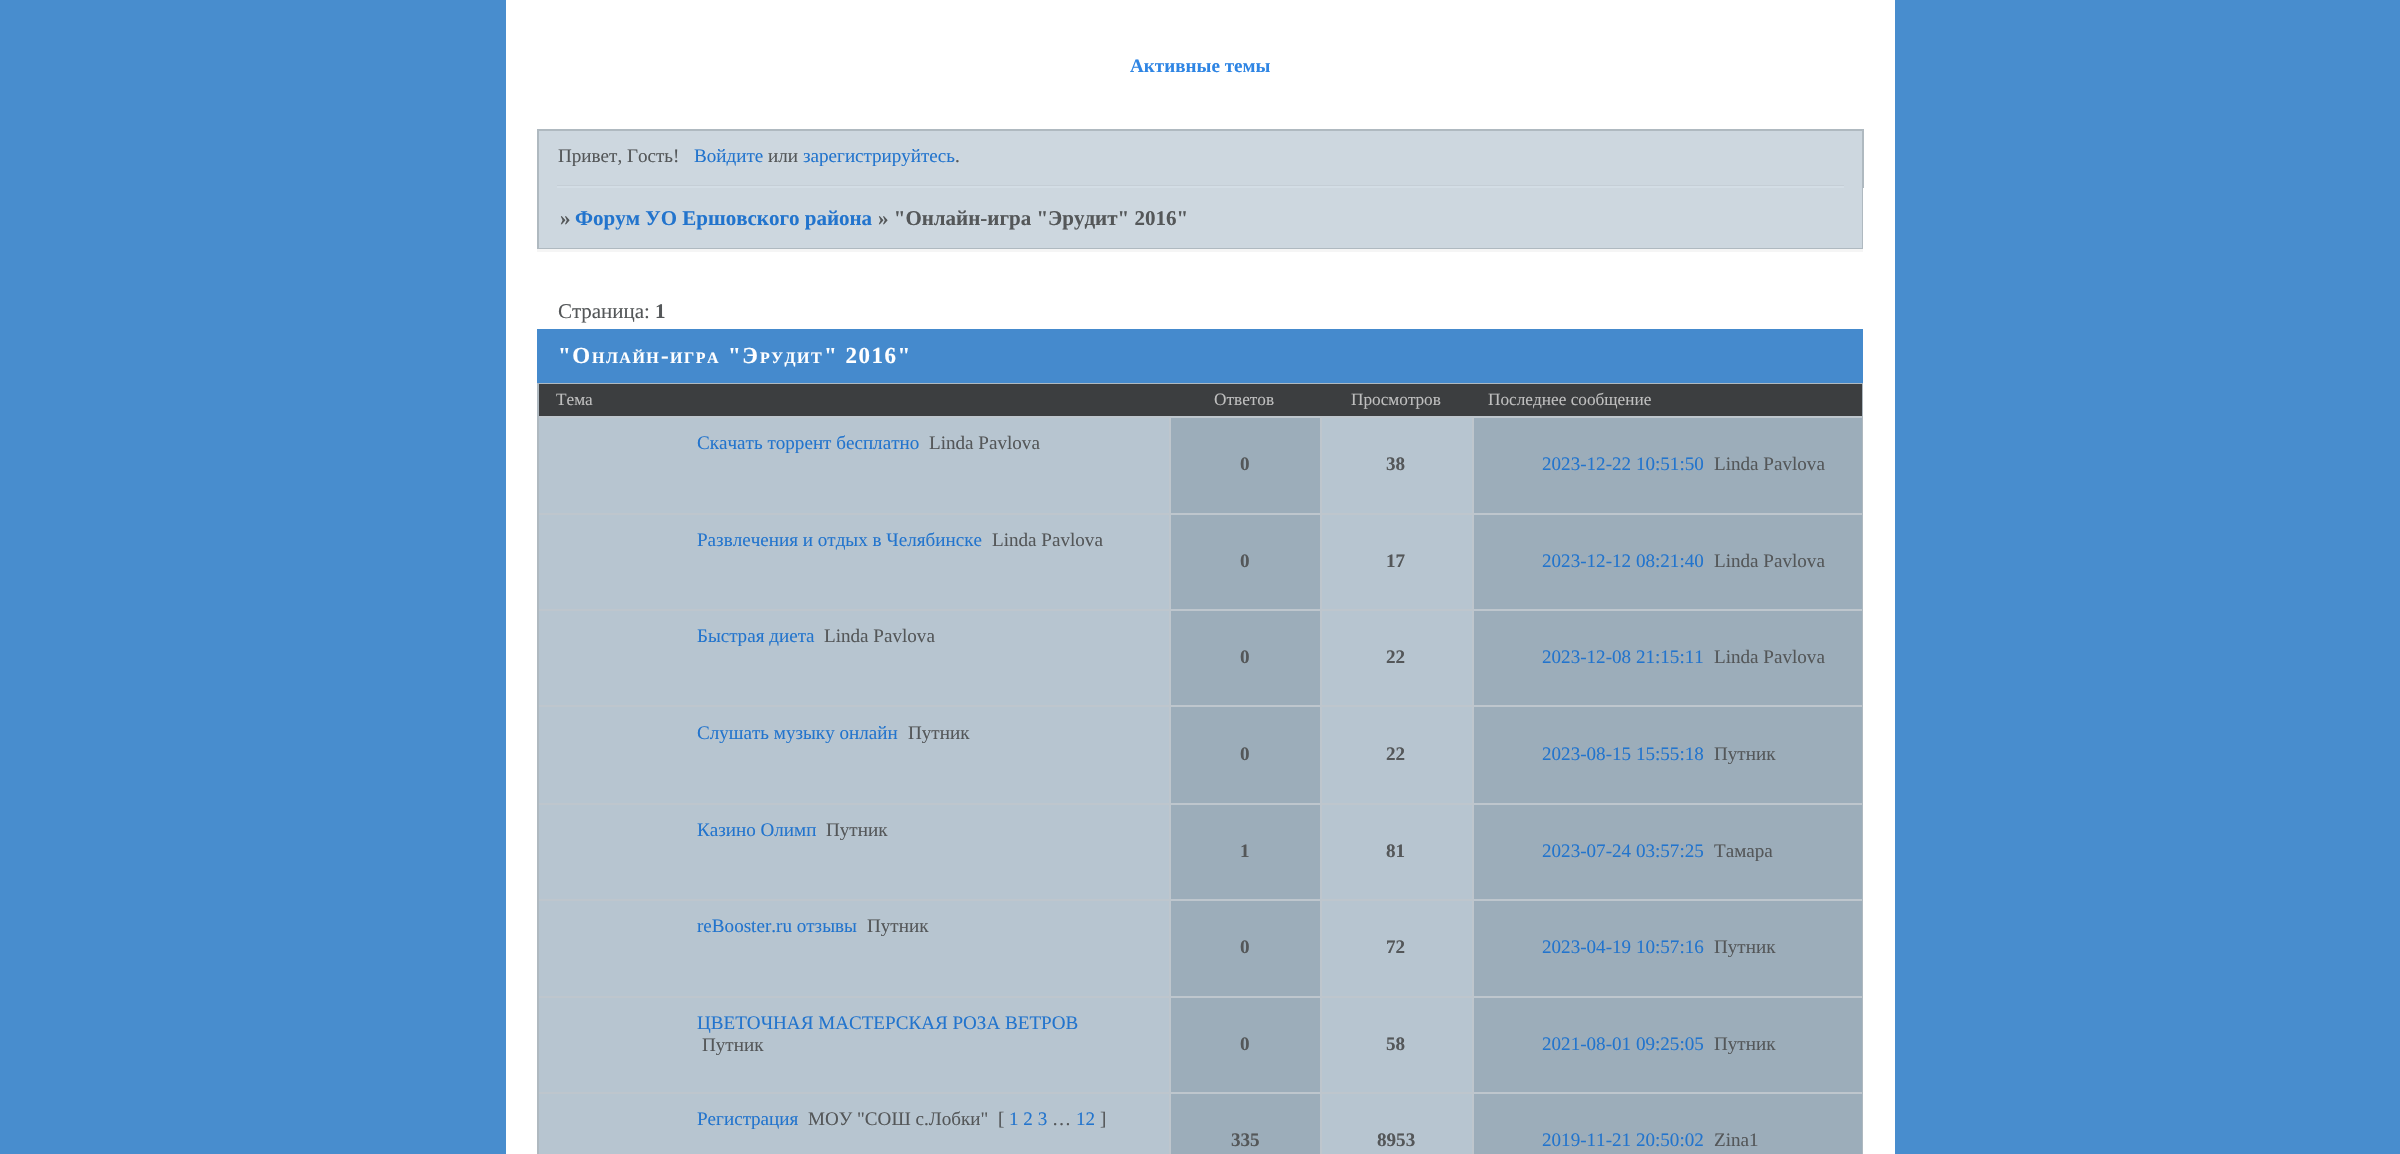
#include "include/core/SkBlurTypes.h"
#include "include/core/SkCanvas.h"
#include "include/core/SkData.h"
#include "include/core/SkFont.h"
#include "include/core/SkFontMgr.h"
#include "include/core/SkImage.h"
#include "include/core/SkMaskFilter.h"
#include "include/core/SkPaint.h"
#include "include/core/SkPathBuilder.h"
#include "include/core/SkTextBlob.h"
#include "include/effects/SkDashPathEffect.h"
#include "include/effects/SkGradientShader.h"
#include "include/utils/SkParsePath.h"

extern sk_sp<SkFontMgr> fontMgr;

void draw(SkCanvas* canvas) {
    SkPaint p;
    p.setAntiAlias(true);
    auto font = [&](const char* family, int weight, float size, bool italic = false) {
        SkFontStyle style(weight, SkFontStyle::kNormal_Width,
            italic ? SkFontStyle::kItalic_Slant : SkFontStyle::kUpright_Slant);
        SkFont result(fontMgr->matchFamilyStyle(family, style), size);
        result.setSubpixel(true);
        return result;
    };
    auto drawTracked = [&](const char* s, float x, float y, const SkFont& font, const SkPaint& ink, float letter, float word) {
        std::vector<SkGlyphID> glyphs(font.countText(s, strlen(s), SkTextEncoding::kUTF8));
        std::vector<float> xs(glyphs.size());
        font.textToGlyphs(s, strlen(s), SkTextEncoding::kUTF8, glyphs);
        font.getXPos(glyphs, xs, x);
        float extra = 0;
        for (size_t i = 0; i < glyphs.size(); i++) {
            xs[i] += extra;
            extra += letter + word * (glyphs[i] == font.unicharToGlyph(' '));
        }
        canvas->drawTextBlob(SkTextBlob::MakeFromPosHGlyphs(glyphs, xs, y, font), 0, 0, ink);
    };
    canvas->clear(0xFF488DCE);
    p.setColor(0xFFFFFFFF);
    canvas->drawRect(SkRect::MakeLTRB(506, 0, 1895, 1154), p);
    auto font1 = font("Liberation Serif", 700, 19.1f);
    p.setColor(0xFF2E85E4);
    canvas->drawString("Активные темы", 1130, 72, font1, p);
    {
        const struct { float l, t, r, b; SkColor color; } items[] = {
            {539, 131, 1862, 248, 0xFFCDD7DF},
            {537, 129, 1863, 131, 0xFFAFB9C0},
            {1862, 129, 1864, 188, 0xFFAFB9C0},
            {537, 129, 539, 188, 0xFFAFB9C0},
        };
        for (auto [l, t, r, b, color] : items) {
            p.setColor(color);
            canvas->drawRect(SkRect::MakeLTRB(l, t, r, b), p);
        }
    }
    auto font2 = font("Liberation Serif", 400, 19.1f);
    p.setColor(0xFF545759);
    canvas->drawString("Привет, Гость!", 558, 162, font2, p);
    p.setColor(0xFF2274CD);
    canvas->drawString("Войдите", 694, 162, font2, p);
    p.setColor(0xFF545759);
    canvas->drawString("или", 768, 162, font2, p);
    p.setColor(0xFF2274CD);
    canvas->drawString("зарегистрируйтесь", 803, 162, font2, p);
    p.setColor(0xFF545759);
    canvas->drawString(".", 955, 162, font2, p);
    {
        const struct { float l, t, r, b; SkColor color; } items[] = {
            {557, 185, 1844, 186, 0xFFC5CED6},
            {557, 186, 1844, 188, 0xFFD3DDE5},
            {537, 249, 1863, 252, 0xFFF5F5F5},
            {1862, 185, 1863, 249, 0xFFAFB9C0},
            {537, 248, 1863, 249, 0xFFAFB9C0},
            {537, 185, 539, 249, 0xFFAFB9C0},
        };
        for (auto [l, t, r, b, color] : items) {
            p.setColor(color);
            canvas->drawRect(SkRect::MakeLTRB(l, t, r, b), p);
        }
    }
    auto font3 = font("Liberation Serif", 700, 21);
    p.setColor(0xFF545759);
    canvas->drawString("»", 560, 225, font3, p);
    p.setColor(0xFF2274CD);
    canvas->drawString("Форум УО Ершовского района", 575, 225, font3, p);
    p.setColor(0xFF545759);
    canvas->drawString("» \"Онлайн-игра \"Эрудит\" 2016\"", 878, 225, font3, p);
    auto font4 = font("Liberation Serif", 400, 21);
    canvas->drawString("Страница:", 558, 318, font4, p);
    canvas->drawString("1", 655, 318, font3, p);
    p.setColor(0xFF458ACD);
    canvas->drawRect(SkRect::MakeLTRB(537, 329, 1863, 383), p);
    auto font5 = font("Liberation Serif", 700, 23);
    p.setColor(0xFFFFFFFF);
    drawTracked("\"О", 558, 363, font5, p, 1.5f, 0);
    auto font6 = font("Liberation Serif", 700, 16);
    drawTracked("НЛАЙН", 592, 363, font6, p, 1.5f, 0);
    drawTracked("-", 661, 363, font5, p, 1.5f, 0);
    drawTracked("ИГРА", 670, 363, font6, p, 1.5f, 0);
    drawTracked("\"Э", 728, 363, font5, p, 1.5f, 0);
    drawTracked("РУДИТ", 760, 363, font6, p, 1.5f, 0);
    drawTracked("\" 2016\"", 824, 363, font5, p, 1.5f, 0);
    p.setStyle(SkPaint::kStroke_Style);
    p.setStrokeWidth(2);
    p.setColor(0xFFAFB9C0);
    canvas->drawRect(SkRect::MakeLTRB(538, 384, 1862, 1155), p);
    p.setStyle(SkPaint::kFill_Style);
    p.setColor(0xFF3C3E40);
    canvas->drawRect(SkRect::MakeLTRB(539, 384, 1862, 416), p);
    auto font7 = font("Liberation Serif", 400, 17.25f);
    p.setColor(0xFFBEBEBE);
    {
        const struct { const char* s; float x, y; } items[] = {
            {"Тема", 556, 405},
            {"Ответов", 1214, 405},
            {"Просмотров", 1351, 405},
            {"Последнее сообщение", 1488, 405},
        };
        for (auto [s, x, y] : items) {
            canvas->drawString(s, x, y, font7, p);
        }
    }
    p.setColor(0xFFB7C5D0);
    canvas->drawRect(SkRect::MakeLTRB(539, 418, 1169, 513), p);
    p.setColor(0xFF2274CD);
    canvas->drawString("Скачать торрент бесплатно", 697, 449, font2, p);
    p.setColor(0xFF545759);
    canvas->drawString("Linda Pavlova", 929, 449, font2, p);
    {
        const struct { float l, t, r, b; SkColor color; } items[] = {
            {1171, 418, 1320, 513, 0xFF9CADBA},
            {539, 416, 1862, 418, 0xFFBEC6CD},
            {1169, 416, 1171, 513, 0xFFBEC6CD},
        };
        for (auto [l, t, r, b, color] : items) {
            p.setColor(color);
            canvas->drawRect(SkRect::MakeLTRB(l, t, r, b), p);
        }
    }
    p.setColor(0xFF545759);
    canvas->drawString("0", 1240, 470, font1, p);
    p.setColor(0xFFB7C5D0);
    canvas->drawRect(SkRect::MakeLTRB(1322, 418, 1472, 513), p);
    p.setColor(0xFFBEC6CD);
    canvas->drawRect(SkRect::MakeLTRB(1320, 416, 1322, 513), p);
    p.setColor(0xFF545759);
    canvas->drawString("38", 1386, 470, font1, p);
    {
        const struct { float l, t, r, b; SkColor color; } items[] = {
            {1474, 418, 1862, 513, 0xFF9CADBA},
            {539, 513, 1862, 515, 0xFFBEC6CD},
            {539, 609, 1862, 611, 0xFFBEC6CD},
            {539, 705, 1862, 707, 0xFFBEC6CD},
            {539, 803, 1862, 805, 0xFFBEC6CD},
            {539, 899, 1862, 901, 0xFFBEC6CD},
            {539, 996, 1862, 998, 0xFFBEC6CD},
            {539, 1092, 1862, 1094, 0xFFBEC6CD},
            {1472, 416, 1474, 1154, 0xFFBEC6CD},
        };
        for (auto [l, t, r, b, color] : items) {
            p.setColor(color);
            canvas->drawRect(SkRect::MakeLTRB(l, t, r, b), p);
        }
    }
    p.setColor(0xFF2274CD);
    canvas->drawString("2023-12-22 10:51:50", 1542, 470, font2, p);
    p.setColor(0xFF545759);
    canvas->drawString("Linda Pavlova", 1714, 470, font2, p);
    p.setColor(0xFFB7C5D0);
    canvas->drawRect(SkRect::MakeLTRB(539, 515, 1169, 609), p);
    p.setColor(0xFF2274CD);
    canvas->drawString("Развлечения и отдых в Челябинске", 697, 546, font2, p);
    p.setColor(0xFF545759);
    canvas->drawString("Linda Pavlova", 992, 546, font2, p);
    p.setColor(0xFF9CADBA);
    canvas->drawRect(SkRect::MakeLTRB(1171, 515, 1320, 609), p);
    p.setColor(0xFFBEC6CD);
    canvas->drawRect(SkRect::MakeLTRB(1169, 513, 1171, 609), p);
    p.setColor(0xFF545759);
    canvas->drawString("0", 1240, 567, font1, p);
    p.setColor(0xFFB7C5D0);
    canvas->drawRect(SkRect::MakeLTRB(1322, 515, 1472, 609), p);
    p.setColor(0xFFBEC6CD);
    canvas->drawRect(SkRect::MakeLTRB(1320, 513, 1322, 609), p);
    p.setColor(0xFF545759);
    canvas->drawString("17", 1386, 567, font1, p);
    p.setColor(0xFF9CADBA);
    canvas->drawRect(SkRect::MakeLTRB(1474, 515, 1862, 609), p);
    p.setColor(0xFF2274CD);
    canvas->drawString("2023-12-12 08:21:40", 1542, 567, font2, p);
    p.setColor(0xFF545759);
    canvas->drawString("Linda Pavlova", 1714, 567, font2, p);
    p.setColor(0xFFB7C5D0);
    canvas->drawRect(SkRect::MakeLTRB(539, 611, 1169, 705), p);
    p.setColor(0xFF2274CD);
    canvas->drawString("Быстрая диета", 697, 642, font2, p);
    p.setColor(0xFF545759);
    canvas->drawString("Linda Pavlova", 824, 642, font2, p);
    p.setColor(0xFF9CADBA);
    canvas->drawRect(SkRect::MakeLTRB(1171, 611, 1320, 705), p);
    p.setColor(0xFFBEC6CD);
    canvas->drawRect(SkRect::MakeLTRB(1169, 609, 1171, 705), p);
    p.setColor(0xFF545759);
    canvas->drawString("0", 1240, 663, font1, p);
    p.setColor(0xFFB7C5D0);
    canvas->drawRect(SkRect::MakeLTRB(1322, 611, 1472, 705), p);
    p.setColor(0xFFBEC6CD);
    canvas->drawRect(SkRect::MakeLTRB(1320, 609, 1322, 705), p);
    p.setColor(0xFF545759);
    canvas->drawString("22", 1386, 663, font1, p);
    p.setColor(0xFF9CADBA);
    canvas->drawRect(SkRect::MakeLTRB(1474, 611, 1862, 705), p);
    p.setColor(0xFF2274CD);
    canvas->drawString("2023-12-08 21:15:11", 1542, 663, font2, p);
    p.setColor(0xFF545759);
    canvas->drawString("Linda Pavlova", 1714, 663, font2, p);
    p.setColor(0xFFB7C5D0);
    canvas->drawRect(SkRect::MakeLTRB(539, 707, 1169, 803), p);
    p.setColor(0xFF2274CD);
    canvas->drawString("Слушать музыку онлайн", 697, 739, font2, p);
    p.setColor(0xFF545759);
    canvas->drawString("Путник", 908, 739, font2, p);
    p.setColor(0xFF9CADBA);
    canvas->drawRect(SkRect::MakeLTRB(1171, 707, 1320, 803), p);
    p.setColor(0xFFBEC6CD);
    canvas->drawRect(SkRect::MakeLTRB(1169, 705, 1171, 803), p);
    p.setColor(0xFF545759);
    canvas->drawString("0", 1240, 760, font1, p);
    p.setColor(0xFFB7C5D0);
    canvas->drawRect(SkRect::MakeLTRB(1322, 707, 1472, 803), p);
    p.setColor(0xFFBEC6CD);
    canvas->drawRect(SkRect::MakeLTRB(1320, 705, 1322, 803), p);
    p.setColor(0xFF545759);
    canvas->drawString("22", 1386, 760, font1, p);
    p.setColor(0xFF9CADBA);
    canvas->drawRect(SkRect::MakeLTRB(1474, 707, 1862, 803), p);
    p.setColor(0xFF2274CD);
    canvas->drawString("2023-08-15 15:55:18", 1542, 760, font2, p);
    p.setColor(0xFF545759);
    canvas->drawString("Путник", 1714, 760, font2, p);
    p.setColor(0xFFB7C5D0);
    canvas->drawRect(SkRect::MakeLTRB(539, 805, 1169, 899), p);
    p.setColor(0xFF2274CD);
    canvas->drawString("Казино Олимп", 697, 836, font2, p);
    p.setColor(0xFF545759);
    canvas->drawString("Путник", 826, 836, font2, p);
    p.setColor(0xFF9CADBA);
    canvas->drawRect(SkRect::MakeLTRB(1171, 805, 1320, 899), p);
    p.setColor(0xFFBEC6CD);
    canvas->drawRect(SkRect::MakeLTRB(1169, 803, 1171, 899), p);
    p.setColor(0xFF545759);
    canvas->drawString("1", 1240, 857, font1, p);
    p.setColor(0xFFB7C5D0);
    canvas->drawRect(SkRect::MakeLTRB(1322, 805, 1472, 899), p);
    p.setColor(0xFFBEC6CD);
    canvas->drawRect(SkRect::MakeLTRB(1320, 803, 1322, 899), p);
    p.setColor(0xFF545759);
    canvas->drawString("81", 1386, 857, font1, p);
    p.setColor(0xFF9CADBA);
    canvas->drawRect(SkRect::MakeLTRB(1474, 805, 1862, 899), p);
    p.setColor(0xFF2274CD);
    canvas->drawString("2023-07-24 03:57:25", 1542, 857, font2, p);
    p.setColor(0xFF545759);
    canvas->drawString("Тамара", 1714, 857, font2, p);
    p.setColor(0xFFB7C5D0);
    canvas->drawRect(SkRect::MakeLTRB(539, 901, 1169, 996), p);
    p.setColor(0xFF2274CD);
    canvas->drawString("reBooster.ru отзывы", 697, 932, font2, p);
    p.setColor(0xFF545759);
    canvas->drawString("Путник", 867, 932, font2, p);
    p.setColor(0xFF9CADBA);
    canvas->drawRect(SkRect::MakeLTRB(1171, 901, 1320, 996), p);
    p.setColor(0xFFBEC6CD);
    canvas->drawRect(SkRect::MakeLTRB(1169, 899, 1171, 996), p);
    p.setColor(0xFF545759);
    canvas->drawString("0", 1240, 953, font1, p);
    p.setColor(0xFFB7C5D0);
    canvas->drawRect(SkRect::MakeLTRB(1322, 901, 1472, 996), p);
    p.setColor(0xFFBEC6CD);
    canvas->drawRect(SkRect::MakeLTRB(1320, 899, 1322, 996), p);
    p.setColor(0xFF545759);
    canvas->drawString("72", 1386, 953, font1, p);
    p.setColor(0xFF9CADBA);
    canvas->drawRect(SkRect::MakeLTRB(1474, 901, 1862, 996), p);
    p.setColor(0xFF2274CD);
    canvas->drawString("2023-04-19 10:57:16", 1542, 953, font2, p);
    p.setColor(0xFF545759);
    canvas->drawString("Путник", 1714, 953, font2, p);
    p.setColor(0xFFB7C5D0);
    canvas->drawRect(SkRect::MakeLTRB(539, 998, 1169, 1092), p);
    p.setColor(0xFF2274CD);
    canvas->drawString("ЦВЕТОЧНАЯ МАСТЕРСКАЯ РОЗА ВЕТРОВ", 697, 1029, font2, p);
    p.setColor(0xFF545759);
    canvas->drawString("Путник", 702, 1051, font2, p);
    p.setColor(0xFF9CADBA);
    canvas->drawRect(SkRect::MakeLTRB(1171, 998, 1320, 1092), p);
    p.setColor(0xFFBEC6CD);
    canvas->drawRect(SkRect::MakeLTRB(1169, 996, 1171, 1092), p);
    p.setColor(0xFF545759);
    canvas->drawString("0", 1240, 1050, font1, p);
    p.setColor(0xFFB7C5D0);
    canvas->drawRect(SkRect::MakeLTRB(1322, 998, 1472, 1092), p);
    p.setColor(0xFFBEC6CD);
    canvas->drawRect(SkRect::MakeLTRB(1320, 996, 1322, 1092), p);
    p.setColor(0xFF545759);
    canvas->drawString("58", 1386, 1050, font1, p);
    p.setColor(0xFF9CADBA);
    canvas->drawRect(SkRect::MakeLTRB(1474, 998, 1862, 1092), p);
    p.setColor(0xFF2274CD);
    canvas->drawString("2021-08-01 09:25:05", 1542, 1050, font2, p);
    p.setColor(0xFF545759);
    canvas->drawString("Путник", 1714, 1050, font2, p);
    p.setColor(0xFFB7C5D0);
    canvas->drawRect(SkRect::MakeLTRB(539, 1094, 1169, 1154), p);
    p.setColor(0xFF2274CD);
    canvas->drawString("Регистрация", 697, 1125, font2, p);
    p.setColor(0xFF545759);
    canvas->drawString("МОУ \"СОШ с.Лобки\"", 808, 1125, font2, p);
    canvas->drawString("[", 998, 1125, font2, p);
    p.setColor(0xFF2274CD);
    canvas->drawString("1 2 3", 1009, 1125, font2, p);
    p.setColor(0xFF545759);
    canvas->drawString("…", 1052, 1125, font2, p);
    p.setColor(0xFF2274CD);
    canvas->drawString("12", 1076, 1125, font2, p);
    p.setColor(0xFF545759);
    canvas->drawString("]", 1100, 1125, font2, p);
    p.setColor(0xFF9CADBA);
    canvas->drawRect(SkRect::MakeLTRB(1171, 1094, 1320, 1154), p);
    p.setColor(0xFFBEC6CD);
    canvas->drawRect(SkRect::MakeLTRB(1169, 1092, 1171, 1154), p);
    p.setColor(0xFF545759);
    canvas->drawString("335", 1231, 1146, font1, p);
    p.setColor(0xFFB7C5D0);
    canvas->drawRect(SkRect::MakeLTRB(1322, 1094, 1472, 1154), p);
    p.setColor(0xFFBEC6CD);
    canvas->drawRect(SkRect::MakeLTRB(1320, 1092, 1322, 1154), p);
    p.setColor(0xFF545759);
    canvas->drawString("8953", 1377, 1146, font1, p);
    p.setColor(0xFF9CADBA);
    canvas->drawRect(SkRect::MakeLTRB(1474, 1094, 1862, 1154), p);
    p.setColor(0xFF2274CD);
    canvas->drawString("2019-11-21 20:50:02", 1542, 1146, font2, p);
    p.setColor(0xFF545759);
    canvas->drawString("Zina1", 1714, 1146, font2, p);
}
